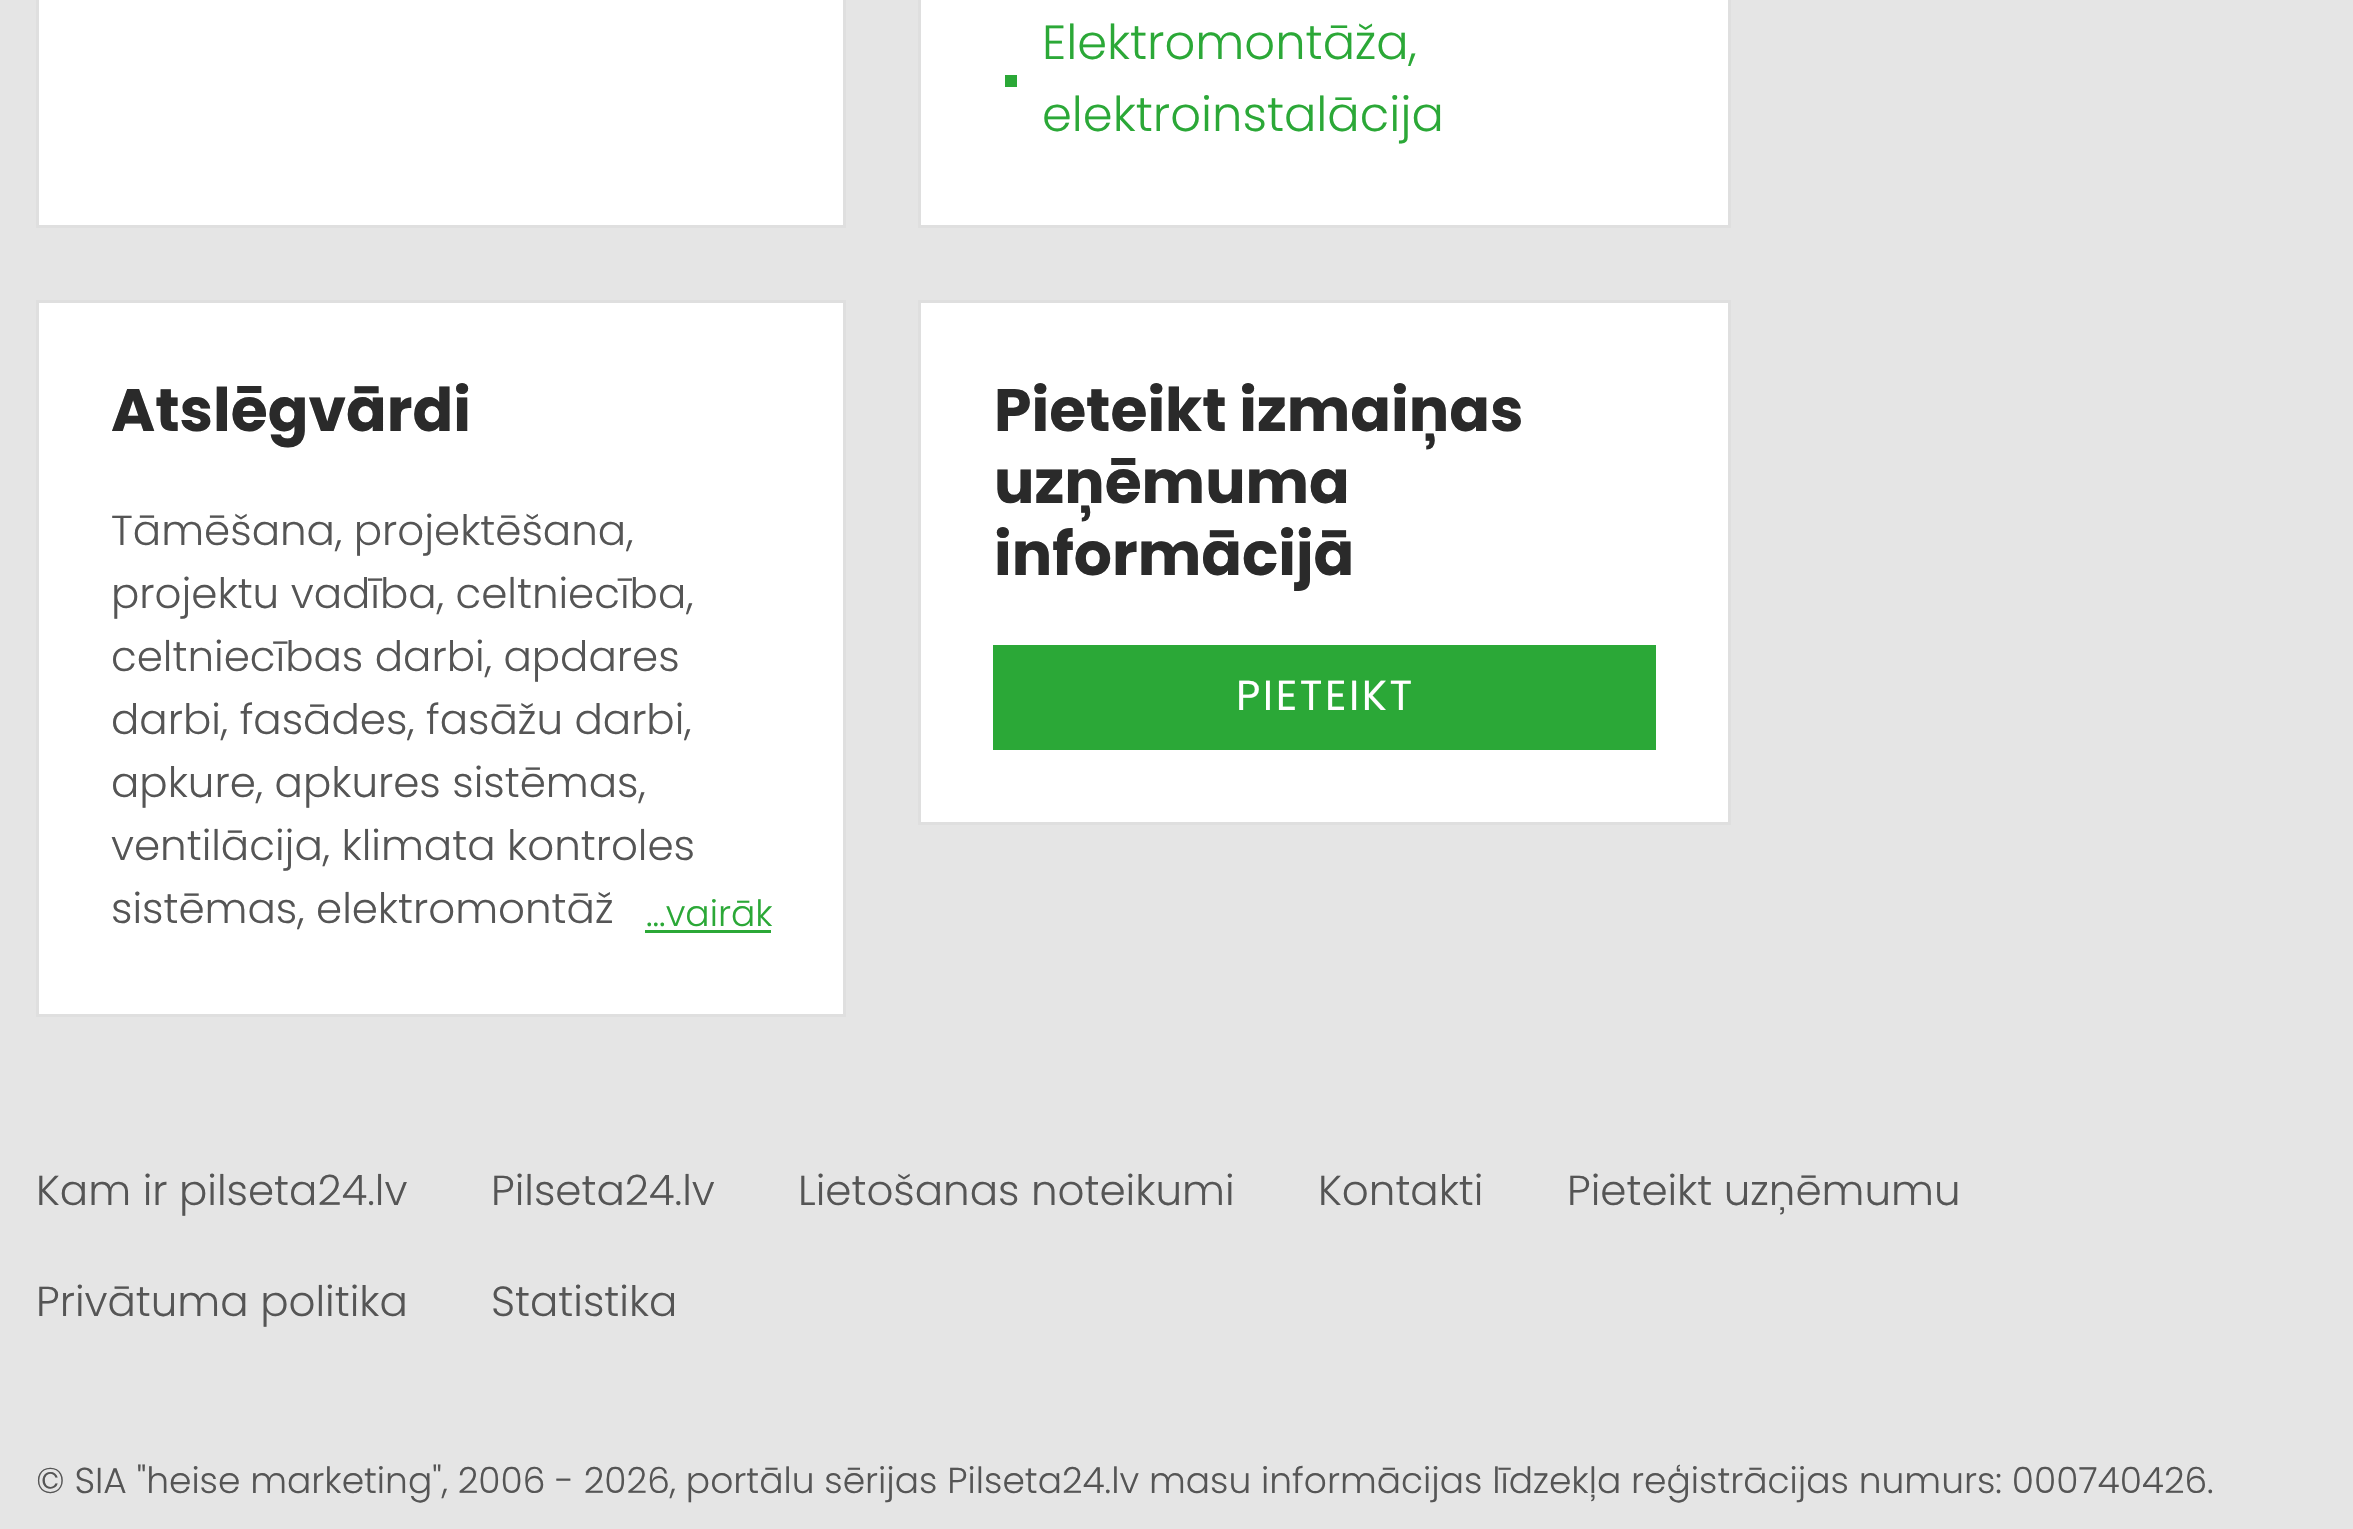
#include "include/core/SkBlurTypes.h"
#include "include/core/SkCanvas.h"
#include "include/core/SkData.h"
#include "include/core/SkFont.h"
#include "include/core/SkFontMgr.h"
#include "include/core/SkImage.h"
#include "include/core/SkMaskFilter.h"
#include "include/core/SkPaint.h"
#include "include/core/SkPathBuilder.h"
#include "include/core/SkTextBlob.h"
#include "include/effects/SkDashPathEffect.h"
#include "include/effects/SkGradientShader.h"
#include "include/utils/SkParsePath.h"

extern sk_sp<SkFontMgr> fontMgr;

void draw(SkCanvas* canvas) {
    SkPaint p;
    p.setAntiAlias(true);
    auto font = [&](const char* family, int weight, float size, bool italic = false) {
        SkFontStyle style(weight, SkFontStyle::kNormal_Width,
            italic ? SkFontStyle::kItalic_Slant : SkFontStyle::kUpright_Slant);
        SkFont result(fontMgr->matchFamilyStyle(family, style), size);
        result.setSubpixel(true);
        return result;
    };
    auto drawTracked = [&](const char* s, float x, float y, const SkFont& font, const SkPaint& ink, float letter, float word) {
        std::vector<SkGlyphID> glyphs(font.countText(s, strlen(s), SkTextEncoding::kUTF8));
        std::vector<float> xs(glyphs.size());
        font.textToGlyphs(s, strlen(s), SkTextEncoding::kUTF8, glyphs);
        font.getXPos(glyphs, xs, x);
        float extra = 0;
        for (size_t i = 0; i < glyphs.size(); i++) {
            xs[i] += extra;
            extra += letter + word * (glyphs[i] == font.unicharToGlyph(' '));
        }
        canvas->drawTextBlob(SkTextBlob::MakeFromPosHGlyphs(glyphs, xs, y, font), 0, 0, ink);
    };
    canvas->clear(0xFFE5E5E5);
    p.setColor(0xFFFFFFFF);
    canvas->drawRect(SkRect::MakeLTRB(37.5f, -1.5f, 844.5f, 226.5f), p);
    p.setStyle(SkPaint::kStroke_Style);
    p.setStrokeWidth(3);
    p.setColor(0xFFDFDFDF);
    canvas->drawRect(SkRect::MakeLTRB(37.5f, -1.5f, 844.5f, 226.5f), p);
    p.setStyle(SkPaint::kFill_Style);
    p.setColor(0xFFFFFFFF);
    canvas->drawRect(SkRect::MakeLTRB(919.5f, -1.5f, 1729.5f, 226.5f), p);
    p.setStyle(SkPaint::kStroke_Style);
    p.setColor(0xFFDFDFDF);
    canvas->drawRect(SkRect::MakeLTRB(919.5f, -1.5f, 1729.5f, 226.5f), p);
    auto font1 = font("Poppins", 300, 48);
    p.setStyle(SkPaint::kFill_Style);
    p.setColor(0xFF2BA837);
    canvas->drawString("Elektromontāža,", 1042, 59, font1, p);
    canvas->drawRect(SkRect::MakeLTRB(1005, 75, 1017, 87), p);
    canvas->drawString("elektroinstalācija", 1042, 131, font1, p);
    p.setColor(0xFFFFFFFF);
    canvas->drawRect(SkRect::MakeLTRB(37.5f, 301.5f, 844.5f, 1015.5f), p);
    p.setStyle(SkPaint::kStroke_Style);
    p.setColor(0xFFDFDFDF);
    canvas->drawRect(SkRect::MakeLTRB(37.5f, 301.5f, 844.5f, 1015.5f), p);
    auto font2 = font("Poppins", 700, 60);
    p.setStyle(SkPaint::kFill_Style);
    p.setColor(0xFF2A2A2A);
    canvas->drawString("Atslēgvārdi", 111, 431, font2, p);
    auto font3 = font("Poppins", 300, 42);
    p.setColor(0xFF555555);
    {
        const struct { const char* s; float x, y; } items[] = {
            {"Tāmēšana, projektēšana,", 111, 545},
            {"projektu vadība, celtniecība,", 111, 608},
            {"celtniecības darbi, apdares", 111, 671},
            {"darbi, fasādes, fasāžu darbi,", 111, 734},
            {"apkure, apkures sistēmas,", 111, 797},
            {"ventilācija, klimata kontroles", 111, 860},
            {"sistēmas, elektromontāž", 111, 923},
        };
        for (auto [s, x, y] : items) {
            canvas->drawString(s, x, y, font3, p);
        }
    }
    auto font4 = font("Poppins", 300, 36);
    p.setColor(0xFF2BA837);
    canvas->drawString("...vairāk", 646, 926, font4, p);
    canvas->drawRect(SkRect::MakeLTRB(645, 930, 771, 933), p);
    p.setColor(0xFFFFFFFF);
    canvas->drawRect(SkRect::MakeLTRB(919.5f, 301.5f, 1729.5f, 823.5f), p);
    p.setStyle(SkPaint::kStroke_Style);
    p.setColor(0xFFDFDFDF);
    canvas->drawRect(SkRect::MakeLTRB(919.5f, 301.5f, 1729.5f, 823.5f), p);
    p.setStyle(SkPaint::kFill_Style);
    p.setColor(0xFF2A2A2A);
    {
        const struct { const char* s; float x, y; } items[] = {
            {"Pieteikt izmaiņas", 994, 431},
            {"uzņēmuma", 994, 503},
            {"informācijā", 994, 575},
        };
        for (auto [s, x, y] : items) {
            canvas->drawString(s, x, y, font2, p);
        }
    }
    p.setColor(0xFF2BA837);
    canvas->drawRect(SkRect::MakeLTRB(993, 645, 1656, 750), p);
    auto font5 = font("Poppins", 400, 42);
    p.setColor(0xFFFFFFFF);
    drawTracked("PIETEIKT", 1236, 710, font5, p, 2.5f, 0);
    p.setColor(0xFF555555);
    {
        const struct { const char* s; float x, y; } items[] = {
            {"Kam ir pilseta24.lv", 36, 1205},
            {"Pilseta24.lv", 491, 1205},
            {"Lietošanas noteikumi", 798, 1205},
            {"Kontakti", 1318, 1205},
            {"Pieteikt uzņēmumu", 1567, 1205},
            {"Privātuma politika", 36, 1316},
            {"Statistika", 491, 1316},
        };
        for (auto [s, x, y] : items) {
            canvas->drawString(s, x, y, font3, p);
        }
    }
    canvas->drawString("© SIA \"heise marketing\", 2006 - 2026, portālu sērijas Pilseta24.lv masu informācijas līdzekļa reģistrācijas numurs: 000740426.", 36, 1493, font4, p);
}
